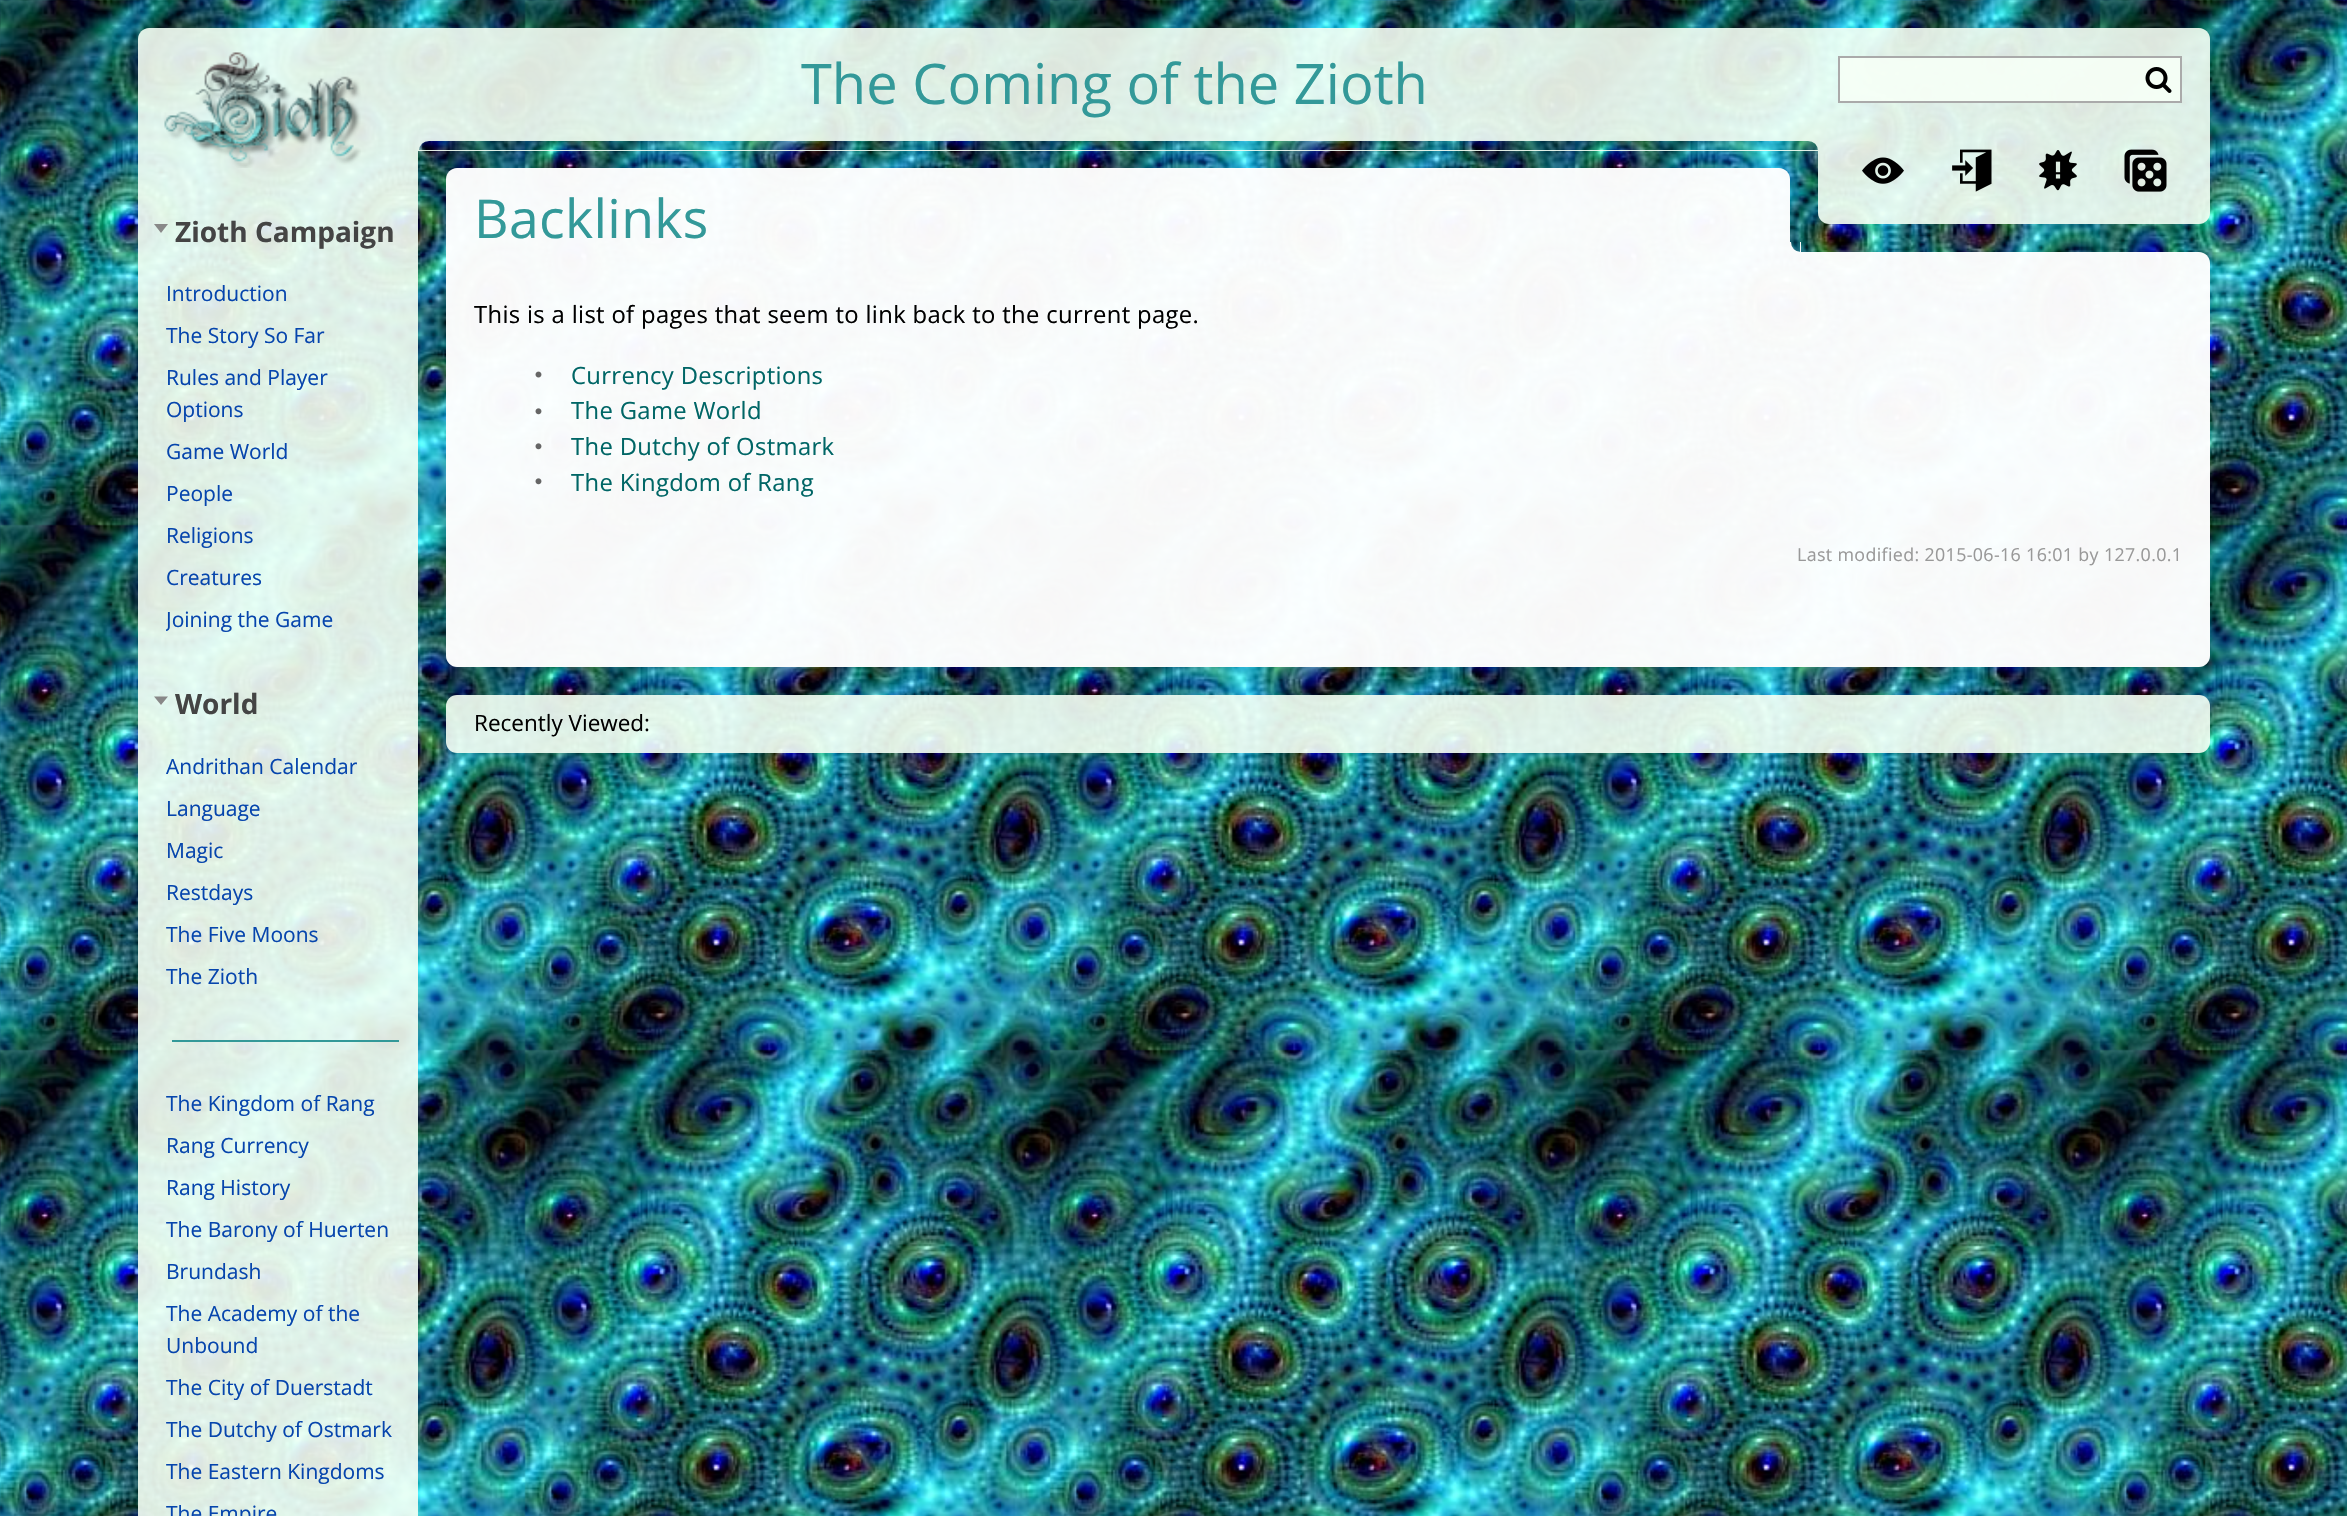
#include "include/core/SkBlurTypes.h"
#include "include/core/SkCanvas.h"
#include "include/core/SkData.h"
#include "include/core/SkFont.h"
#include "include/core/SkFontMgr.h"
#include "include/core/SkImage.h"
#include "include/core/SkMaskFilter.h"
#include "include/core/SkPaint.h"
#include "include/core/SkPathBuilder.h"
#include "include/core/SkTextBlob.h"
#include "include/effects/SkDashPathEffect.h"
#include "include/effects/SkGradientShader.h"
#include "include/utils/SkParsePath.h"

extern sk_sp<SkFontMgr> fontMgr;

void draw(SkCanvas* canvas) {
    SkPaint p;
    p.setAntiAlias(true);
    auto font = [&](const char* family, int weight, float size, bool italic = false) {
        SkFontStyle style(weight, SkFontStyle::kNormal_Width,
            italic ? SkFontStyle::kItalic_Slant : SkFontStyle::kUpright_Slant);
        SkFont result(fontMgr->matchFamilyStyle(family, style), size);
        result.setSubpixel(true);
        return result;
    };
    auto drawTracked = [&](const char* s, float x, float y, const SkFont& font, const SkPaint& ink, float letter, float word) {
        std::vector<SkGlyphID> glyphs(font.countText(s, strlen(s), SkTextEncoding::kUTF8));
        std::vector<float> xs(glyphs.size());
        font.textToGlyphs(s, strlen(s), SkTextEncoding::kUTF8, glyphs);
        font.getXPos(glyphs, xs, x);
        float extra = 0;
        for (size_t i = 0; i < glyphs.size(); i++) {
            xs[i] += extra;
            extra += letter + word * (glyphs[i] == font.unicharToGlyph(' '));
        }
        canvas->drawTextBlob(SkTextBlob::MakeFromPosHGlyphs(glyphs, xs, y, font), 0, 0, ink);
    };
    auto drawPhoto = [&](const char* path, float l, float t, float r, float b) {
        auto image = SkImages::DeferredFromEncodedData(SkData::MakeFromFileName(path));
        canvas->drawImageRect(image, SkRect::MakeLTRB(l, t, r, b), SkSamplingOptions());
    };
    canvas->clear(0xFFFFFFFF);
    drawPhoto("media/1.png", 0, 0, 2347, 1516);
    p.setColor(0xE6F4FFF4);
    canvas->drawPath(SkPathBuilder().moveTo(149, 28).lineTo(418, 28).lineTo(418, 168).lineTo(138, 168).lineTo(138, 39).cubicTo(138, 33, 143, 28, 149, 28).close().detach(), p);
    drawPhoto("media/2.png", 164, 52, 361, 168);
    canvas->drawPath(SkPathBuilder().moveTo(418, 28).lineTo(2199, 28).cubicTo(2205, 28, 2210, 33, 2210, 39).lineTo(2210, 140).lineTo(418, 140).close().detach(), p);
    auto font1 = font("Open Sans", 400, 56);
    p.setColor(0xFF339999);
    canvas->drawString("The Coming of the Zioth", 801, 104, font1, p);
    p.setColor(0xF7FFFFFF);
    canvas->drawPath(SkPathBuilder().moveTo(457, 168).lineTo(1779, 168).cubicTo(1785, 168, 1790, 173, 1790, 179).lineTo(1790, 667).lineTo(457, 667).cubicTo(451, 667, 446, 662, 446, 656).lineTo(446, 179).cubicTo(446, 173, 451, 168, 457, 168).close().detach(), p);
    canvas->drawPath(SkPathBuilder().moveTo(1790, 252).lineTo(2199, 252).cubicTo(2205, 252, 2210, 257, 2210, 263).lineTo(2210, 656).cubicTo(2210, 662, 2205, 667, 2199, 667).lineTo(1790, 667).close().detach(), p);
    canvas->save();
    canvas->clipRect(SkRect::MakeLTRB(1790, 242, 1801, 252));
    p.setStyle(SkPaint::kStroke_Style);
    p.setStrokeWidth(88);
    canvas->drawPath(SkPathBuilder().moveTo(1747, 198).lineTo(1844, 198).lineTo(1844, 296).lineTo(1801, 296).cubicTo(1771, 296, 1747, 272, 1747, 242).close().detach(), p);
    canvas->restore();
    p.setStyle(SkPaint::kFill_Style);
    p.setColor(0xE6F4FFF4);
    canvas->drawPath(SkPathBuilder().moveTo(1818, 140).lineTo(2210, 140).lineTo(2210, 213).cubicTo(2210, 219, 2205, 224, 2199, 224).lineTo(1829, 224).cubicTo(1823, 224, 1818, 219, 1818, 213).close().detach(), p);
    canvas->drawRect(SkRect::MakeLTRB(138, 168, 418, 1516), p);
    auto font2 = font("Open Sans", 700, 28);
    p.setColor(0xFF444444);
    canvas->drawString("Zioth Campaign", 175, 242, font2, p);
    auto font3 = font("Open Sans", 400, 53.5f);
    p.setColor(0xFF339999);
    drawTracked("Backlinks", 474, 238, font3, p, 0.35f, 0);
    canvas->save();
    canvas->clipRect(SkRect::MakeLTRB(418, 140, 1818, 151));
    p.setStyle(SkPaint::kStroke_Style);
    p.setColor(0xE6F4FFF4);
    canvas->drawPath(SkPathBuilder().moveTo(429, 97).lineTo(1808, 97).cubicTo(1838, 97, 1862, 121, 1862, 151).lineTo(1862, 194).lineTo(375, 194).lineTo(375, 151).cubicTo(375, 121, 399, 97, 429, 97).close().detach(), p);
    canvas->restore();
    p.setStyle(SkPaint::kFill_Style);
    p.setColor(0xE6F6FFF6);
    canvas->drawRect(SkRect::MakeLTRB(1839, 57, 2181, 102), p);
    p.setStyle(SkPaint::kStroke_Style);
    p.setStrokeWidth(2);
    p.setColor(0xFFAAAAAA);
    canvas->drawRect(SkRect::MakeLTRB(1839, 57, 2181, 102), p);
    drawPhoto("media/3.png", 2145, 67, 2172, 93);
    drawPhoto("media/4.png", 1862, 157, 1904, 184);
    drawPhoto("media/5.png", 1952, 149, 1992, 192);
    drawPhoto("media/6.png", 2039, 150, 2077, 191);
    drawPhoto("media/7.png", 2124, 149, 2167, 192);
    p.setStyle(SkPaint::kFill_Style);
    p.setColor(0xFF888888);
    canvas->drawPath(SkPathBuilder().moveTo(154, 224).lineTo(168, 224).lineTo(161, 233).close().detach(), p);
    auto font4 = font("Open Sans", 400, 21);
    p.setColor(0xFF0645AD);
    {
        const struct { const char* s; float x, y; } items[] = {
            {"Introduction", 166, 301},
            {"The Story So Far", 166, 343},
            {"Rules and Player", 166, 385},
            {"Options", 166, 417},
            {"Game World", 166, 459},
            {"People", 166, 501},
            {"Religions", 166, 543},
            {"Creatures", 166, 585},
        };
        for (auto [s, x, y] : items) {
            canvas->drawString(s, x, y, font4, p);
        }
    }
    canvas->save();
    canvas->clipRect(SkRect::MakeLTRB(166, 599, 404, 641));
    canvas->drawString("Joining the Game", 166, 627, font4, p);
    canvas->restore();
    p.setColor(0xFF888888);
    canvas->drawPath(SkPathBuilder().moveTo(154, 696.5f).lineTo(168, 696.5f).lineTo(161, 705).close().detach(), p);
    p.setColor(0xFF444444);
    canvas->drawString("World", 175, 714, font2, p);
    p.setColor(0xFF0645AD);
    {
        const struct { const char* s; float x, y; } items[] = {
            {"Andrithan Calendar", 166, 774},
            {"Language", 166, 816},
            {"Magic", 166, 858},
            {"Restdays", 166, 900},
            {"The Five Moons", 166, 942},
            {"The Zioth", 166, 984},
        };
        for (auto [s, x, y] : items) {
            canvas->drawString(s, x, y, font4, p);
        }
    }
    p.setColor(0xFF339999);
    canvas->drawRect(SkRect::MakeLTRB(172, 1040, 399, 1042), p);
    p.setColor(0xFF0645AD);
    {
        const struct { const char* s; float x, y; } items[] = {
            {"The Kingdom of Rang", 166, 1111},
            {"Rang Currency", 166, 1153},
            {"Rang History", 166, 1195},
            {"The Barony of Huerten", 166, 1237},
            {"Brundash", 166, 1279},
            {"The Academy of the", 166, 1321},
            {"Unbound", 166, 1353},
            {"The City of Duerstadt", 166, 1395},
            {"The Dutchy of Ostmark", 166, 1437},
            {"The Eastern Kingdoms", 166, 1479},
            {"The Empire", 166, 1521},
        };
        for (auto [s, x, y] : items) {
            canvas->drawString(s, x, y, font4, p);
        }
    }
    auto font5 = font("Open Sans", 400, 23.8f);
    p.setColor(0xFF000000);
    drawTracked("This is a list of pages that seem to link back to the current page.", 474, 323, font5, p, 0.35f, 0);
    drawPhoto("media/8.png", 535, 371, 542, 378);
    p.setColor(0xFF006666);
    drawTracked("Currency Descriptions", 571, 384, font5, p, 0.35f, 0);
    drawPhoto("media/9.png", 535, 408, 542, 415);
    drawTracked("The Game World", 571, 419, font5, p, 0.35f, 0);
    drawPhoto("media/10.png", 535, 443, 542, 450);
    drawTracked("The Dutchy of Ostmark", 571, 455, font5, p, 0.35f, 0);
    drawPhoto("media/11.png", 535, 478, 542, 485);
    drawTracked("The Kingdom of Rang", 571, 491, font5, p, 0.35f, 0);
    auto font6 = font("Open Sans", 400, 17.85f);
    p.setColor(0xFF999999);
    drawTracked("Last modified: 2015-06-16 16:01 by 127.0.0.1", 1797, 561, font6, p, 0.35f, 0);
    p.setColor(0xE6F4FFF4);
    canvas->drawRoundRect(SkRect::MakeLTRB(446, 695, 2210, 753), 11, 11, p);
    auto font7 = font("Open Sans", 400, 22.5f);
    p.setColor(0xFF000000);
    canvas->drawString("Recently Viewed:", 474, 731, font7, p);
}
